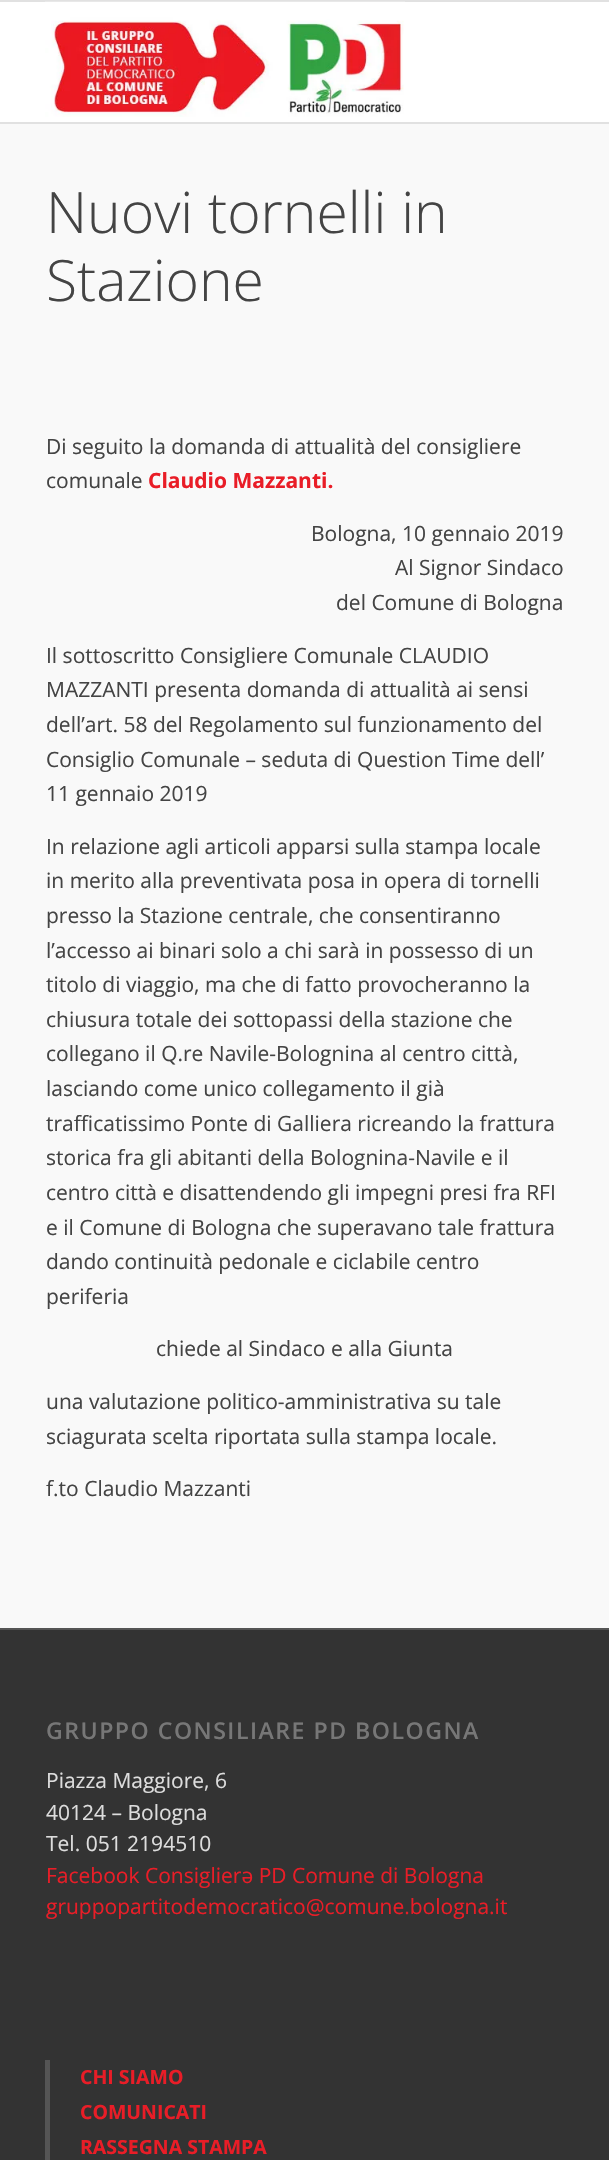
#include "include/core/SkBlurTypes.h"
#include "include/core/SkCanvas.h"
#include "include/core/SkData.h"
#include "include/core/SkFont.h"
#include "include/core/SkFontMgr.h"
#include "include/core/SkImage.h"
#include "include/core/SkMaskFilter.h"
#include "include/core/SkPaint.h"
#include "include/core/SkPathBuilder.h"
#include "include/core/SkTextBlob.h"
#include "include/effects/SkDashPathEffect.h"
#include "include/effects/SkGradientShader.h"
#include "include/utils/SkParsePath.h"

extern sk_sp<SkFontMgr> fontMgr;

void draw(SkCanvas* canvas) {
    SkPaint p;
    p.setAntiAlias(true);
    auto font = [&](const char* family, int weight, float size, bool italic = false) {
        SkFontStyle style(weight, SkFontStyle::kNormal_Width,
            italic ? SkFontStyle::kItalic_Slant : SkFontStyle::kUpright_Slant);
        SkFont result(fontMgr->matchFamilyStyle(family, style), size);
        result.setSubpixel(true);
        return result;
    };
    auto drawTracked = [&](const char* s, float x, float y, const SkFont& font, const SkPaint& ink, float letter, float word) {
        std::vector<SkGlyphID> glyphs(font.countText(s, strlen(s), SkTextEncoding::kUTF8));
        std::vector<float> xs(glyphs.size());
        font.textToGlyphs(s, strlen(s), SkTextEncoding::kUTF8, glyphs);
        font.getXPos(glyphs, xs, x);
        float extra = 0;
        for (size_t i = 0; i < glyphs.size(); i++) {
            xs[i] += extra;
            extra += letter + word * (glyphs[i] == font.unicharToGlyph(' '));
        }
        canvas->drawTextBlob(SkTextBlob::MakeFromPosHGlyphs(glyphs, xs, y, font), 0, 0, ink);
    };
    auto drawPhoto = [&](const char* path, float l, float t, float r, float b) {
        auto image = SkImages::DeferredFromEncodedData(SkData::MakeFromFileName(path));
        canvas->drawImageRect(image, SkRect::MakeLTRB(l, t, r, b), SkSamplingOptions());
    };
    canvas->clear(0xFFF9F9F9);
    {
        const struct { float l, t, r, b; SkColor color; } items[] = {
            {0, 0, 609, 2, 0xFFE1E1E1},
            {0, 122, 609, 124, 0xFFE1E1E1},
            {0, 2, 609, 122, 0xFFFFFFFF},
        };
        for (auto [l, t, r, b, color] : items) {
            p.setColor(color);
            canvas->drawRect(SkRect::MakeLTRB(l, t, r, b), p);
        }
    }
    drawPhoto("media/1.png", 45, 1, 405, 117);
    auto font1 = font("Open Sans", 300, 57);
    p.setColor(0xFF444444);
    canvas->drawString("Nuovi tornelli in", 46, 233, font1, p);
    canvas->drawString("Stazione", 46, 301, font1, p);
    auto font2 = font("Open Sans", 400, 21);
    canvas->drawString("Di seguito la domanda di attualità del consigliere", 46, 454, font2, p);
    canvas->drawString("comunale", 46, 488, font2, p);
    auto font3 = font("Open Sans", 700, 21);
    p.setColor(0xFFE91D27);
    canvas->drawString("Claudio Mazzanti.", 148, 488, font3, p);
    p.setColor(0xFF444444);
    {
        const struct { const char* s; float x, y; } items[] = {
            {"Bologna, 10 gennaio 2019", 311, 541},
            {"Al Signor Sindaco", 395, 575},
            {"del Comune di Bologna", 336, 610},
            {"Il sottoscritto Consigliere Comunale CLAUDIO", 46, 663},
            {"MAZZANTI presenta domanda di attualità ai sensi", 46, 697},
            {"dell’art. 58 del Regolamento sul funzionamento del", 46, 732},
            {"Consiglio Comunale – seduta di Question Time dell’", 46, 767},
            {"11 gennaio 2019", 46, 801},
            {"In relazione agli articoli apparsi sulla stampa locale", 46, 854},
            {"in merito alla preventivata posa in opera di tornelli", 46, 888},
            {"presso la Stazione centrale, che consentiranno", 46, 923},
            {"l’accesso ai binari solo a chi sarà in possesso di un", 46, 958},
            {"titolo di viaggio, ma che di fatto provocheranno la", 46, 992},
            {"chiusura totale dei sottopassi della stazione che", 46, 1027},
            {"collegano il Q.re Navile-Bolognina al centro città,", 46, 1061},
            {"lasciando come unico collegamento il già", 46, 1096},
            {"trafficatissimo Ponte di Galliera ricreando la frattura", 46, 1131},
            {"storica fra gli abitanti della Bolognina-Navile e il", 46, 1165},
            {"centro città e disattendendo gli impegni presi fra RFI", 46, 1200},
            {"e il Comune di Bologna che superavano tale frattura", 46, 1235},
            {"dando continuità pedonale e ciclabile centro", 46, 1269},
            {"periferia", 46, 1304},
            {"chiede al Sindaco e alla Giunta", 156, 1356},
            {"una valutazione politico-amministrativa su tale", 46, 1409},
            {"sciagurata scelta riportata sulla stampa locale.", 46, 1444},
            {"f.to Claudio Mazzanti", 46, 1496},
        };
        for (auto [s, x, y] : items) {
            canvas->drawString(s, x, y, font2, p);
        }
    }
    p.setColor(0xFF333333);
    canvas->drawRect(SkRect::MakeLTRB(0, 1630, 609, 2160), p);
    p.setColor(0xFF555555);
    canvas->drawRect(SkRect::MakeLTRB(0, 1628, 609, 1630), p);
    auto font4 = font("Open Sans", 600, 23.1f);
    p.setColor(0xFF777777);
    drawTracked("GRUPPO CONSILIARE PD BOLOGNA", 46, 1739, font4, p, 1.5f, 0);
    p.setColor(0xFFDDDDDD);
    {
        const struct { const char* s; float x, y; } items[] = {
            {"Piazza Maggiore, 6", 46, 1788},
            {"40124 – Bologna", 46, 1820},
            {"Tel. 051 2194510", 46, 1851},
        };
        for (auto [s, x, y] : items) {
            canvas->drawString(s, x, y, font2, p);
        }
    }
    p.setColor(0xFFE91D27);
    canvas->drawString("Facebook Consiglierə PD Comune di Bologna", 46, 1883, font2, p);
    canvas->drawString("gruppopartitodemocratico@comune.bologna.it", 46, 1914, font2, p);
    p.setColor(0xFF555555);
    canvas->drawRect(SkRect::MakeLTRB(45, 2060, 50, 2160), p);
    auto font5 = font("Open Sans", 700, 19.5f);
    p.setColor(0xFFE91D27);
    {
        const struct { const char* s; float x, y; } items[] = {
            {"CHI SIAMO", 80, 2084},
            {"COMUNICATI", 80, 2119},
            {"RASSEGNA STAMPA", 80, 2154},
        };
        for (auto [s, x, y] : items) {
            canvas->drawString(s, x, y, font5, p);
        }
    }
}
